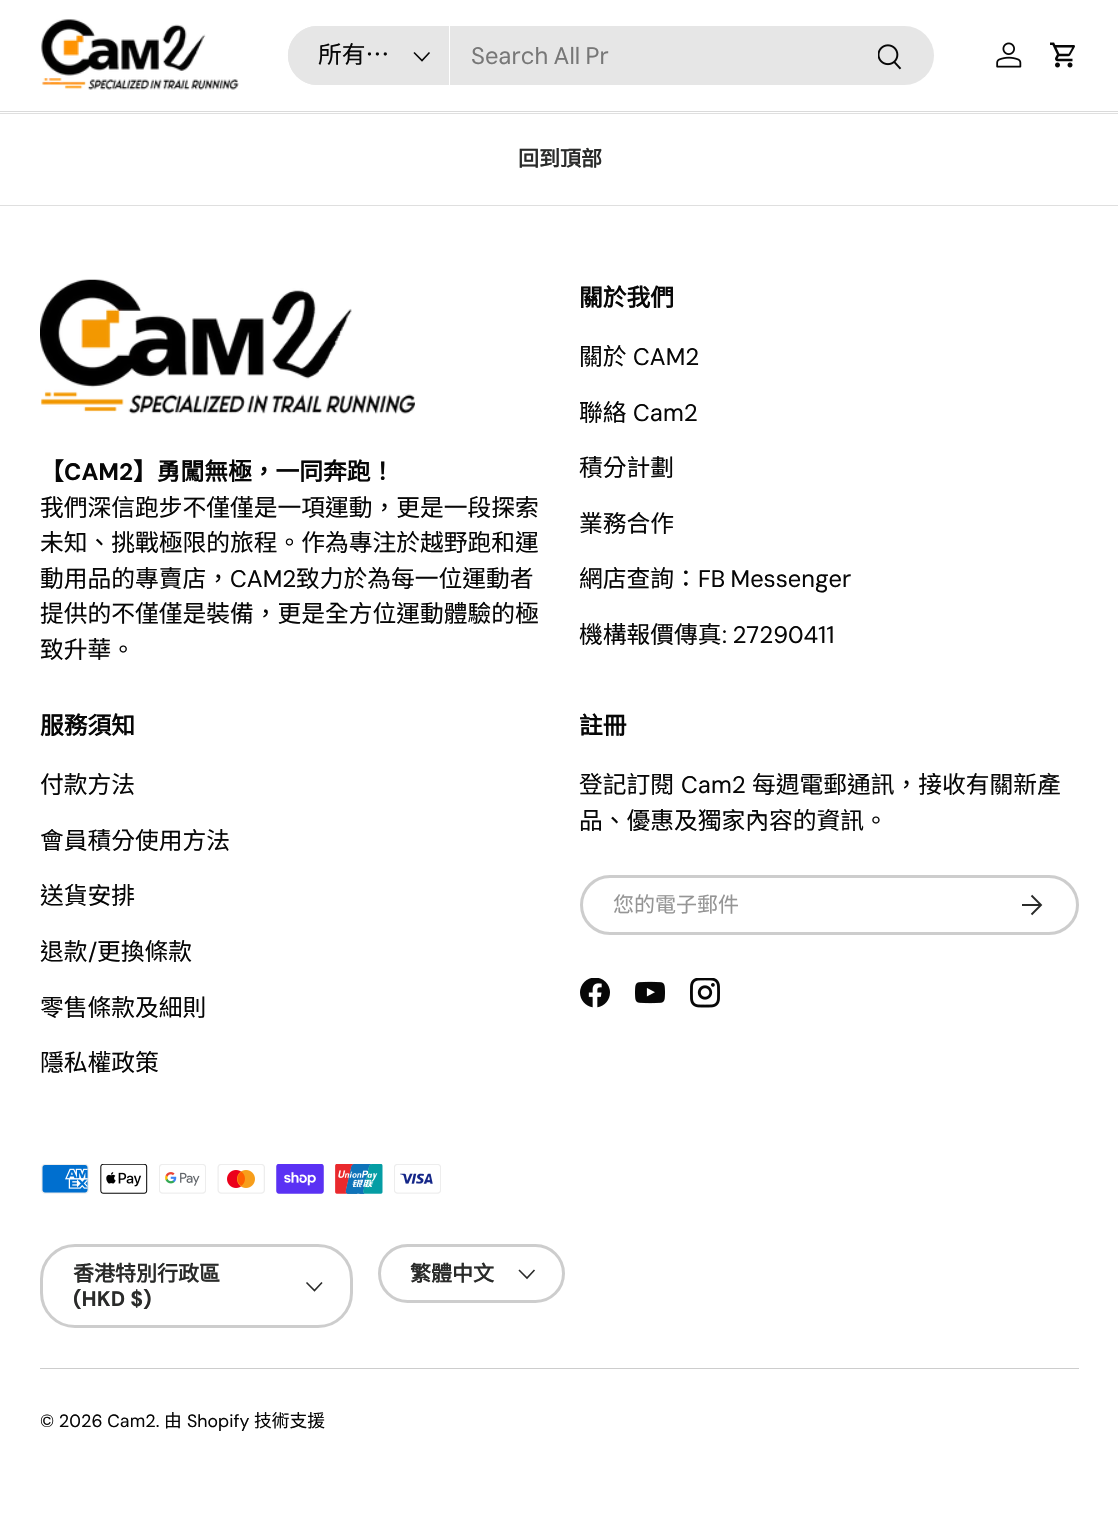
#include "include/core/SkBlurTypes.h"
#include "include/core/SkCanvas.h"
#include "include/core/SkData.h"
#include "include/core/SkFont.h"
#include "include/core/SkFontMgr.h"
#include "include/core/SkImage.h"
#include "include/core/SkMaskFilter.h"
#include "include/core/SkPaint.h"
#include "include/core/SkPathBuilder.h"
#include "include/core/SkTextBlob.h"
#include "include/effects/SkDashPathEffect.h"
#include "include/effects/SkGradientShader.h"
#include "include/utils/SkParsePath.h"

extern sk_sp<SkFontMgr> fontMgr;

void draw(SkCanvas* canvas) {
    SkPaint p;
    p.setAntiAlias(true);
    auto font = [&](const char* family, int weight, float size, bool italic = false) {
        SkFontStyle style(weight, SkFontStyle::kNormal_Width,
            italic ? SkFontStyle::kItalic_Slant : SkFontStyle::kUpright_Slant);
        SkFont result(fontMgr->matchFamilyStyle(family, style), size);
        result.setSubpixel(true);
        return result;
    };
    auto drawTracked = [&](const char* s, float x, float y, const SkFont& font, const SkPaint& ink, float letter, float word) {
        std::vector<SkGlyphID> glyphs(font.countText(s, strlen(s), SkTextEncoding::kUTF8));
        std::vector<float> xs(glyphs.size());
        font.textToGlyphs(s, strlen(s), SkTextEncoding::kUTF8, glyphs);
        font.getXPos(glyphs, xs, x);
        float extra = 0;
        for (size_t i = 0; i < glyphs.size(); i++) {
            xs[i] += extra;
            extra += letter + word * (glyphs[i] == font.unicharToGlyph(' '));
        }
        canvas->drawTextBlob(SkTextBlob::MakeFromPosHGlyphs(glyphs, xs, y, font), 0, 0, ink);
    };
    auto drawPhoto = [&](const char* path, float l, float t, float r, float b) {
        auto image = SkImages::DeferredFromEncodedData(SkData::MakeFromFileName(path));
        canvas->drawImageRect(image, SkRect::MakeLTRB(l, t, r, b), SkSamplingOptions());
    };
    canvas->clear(0xFFFFFFFF);
    p.setColor(0xFFDADADA);
    canvas->drawRect(SkRect::MakeLTRB(0, 111, 1118, 112), p);
    drawPhoto("media/1.png", 41, 19, 239, 90);
    p.setColor(0xFFE6E6E6);
    canvas->drawRoundRect(SkRect::MakeLTRB(288, 26, 934, 85), 29.5f, 29.5f, p);
    canvas->drawPath(SkPathBuilder().moveTo(317.5f, 26).lineTo(450, 26).lineTo(450, 85).lineTo(317.5f, 85).cubicTo(301, 85, 288, 72, 288, 55.5f).cubicTo(288, 39, 301, 26, 317.5f, 26).close().detach(), p);
    p.setColor(0xFFFFFFFF);
    canvas->drawRect(SkRect::MakeLTRB(449, 26, 450, 85), p);
    auto font1 = font("Noto Sans CJK TC", 400, 23.75f);
    p.setColor(0xFF070707);
    canvas->drawString("所有…", 318, 63, font1, p);
    p.setStyle(SkPaint::kStroke_Style);
    p.setStrokeWidth(1.6f);
    canvas->drawPath(SkPathBuilder().moveTo(429.5f, 52.5f).lineTo(422, 60.5f).lineTo(414, 52.5f).detach(), p);
    auto font2 = font("DM Sans", 400, 23.75f);
    p.setStyle(SkPaint::kFill_Style);
    p.setColor(0xFF777777);
    drawTracked("Search All Pr", 471, 64, font2, p, 0, -1);
    drawPhoto("media/2.png", 878, 44, 902, 70);
    drawPhoto("media/3.png", 996, 42, 1022, 68);
    drawPhoto("media/4.png", 1050, 42, 1075, 68);
    p.setColor(0xFFDFDFDF);
    canvas->drawRect(SkRect::MakeLTRB(0, 113, 1118, 114), p);
    canvas->drawRect(SkRect::MakeLTRB(0, 205, 1118, 206), p);
    auto font3 = font("Noto Sans CJK TC", 700, 21);
    p.setColor(0xFF2A2B2A);
    canvas->drawString("回到頂部", 518, 166, font3, p);
    drawPhoto("media/5.png", 40, 279, 415, 414);
    auto font4 = font("Noto Sans CJK TC", 700, 23.75f);
    p.setColor(0xFF070707);
    canvas->drawString("【", 40, 480, font4, p);
    auto font5 = font("DM Sans", 700, 23.75f);
    canvas->drawString("CAM2", 64, 480, font5, p);
    canvas->drawString("】勇闖無極，一同奔跑！", 133, 480, font4, p);
    {
        const struct { const char* s; float x, y; } items[] = {
            {"我們深信跑步不僅僅是一項運動，更是一段探索", 40, 516},
            {"未知、挑戰極限的旅程。作為專注於越野跑和運", 40, 551},
            {"動用品的專賣店，", 40, 587},
        };
        for (auto [s, x, y] : items) {
            canvas->drawString(s, x, y, font1, p);
        }
    }
    canvas->drawString("CAM2", 230, 587, font2, p);
    {
        const struct { const char* s; float x, y; } items[] = {
            {"致力於為每一位運動者", 296, 587},
            {"提供的不僅僅是裝備，更是全方位運動體驗的極", 40, 622},
            {"致升華。", 40, 658},
        };
        for (auto [s, x, y] : items) {
            canvas->drawString(s, x, y, font1, p);
        }
    }
    canvas->drawString("關於我們", 579, 306, font4, p);
    canvas->drawString("關於", 579, 365, font1, p);
    canvas->drawString("CAM2", 633, 365, font2, p);
    canvas->drawString("聯絡", 579, 421, font1, p);
    canvas->drawString("Cam2", 633, 421, font2, p);
    {
        const struct { const char* s; float x, y; } items[] = {
            {"積分計劃", 579, 476},
            {"業務合作", 579, 532},
            {"網店查詢：", 579, 587},
        };
        for (auto [s, x, y] : items) {
            canvas->drawString(s, x, y, font1, p);
        }
    }
    drawTracked("FB Messenger", 698, 587, font2, p, 0, -1);
    canvas->drawString("機構報價傳真", 579, 643, font1, p);
    drawTracked(": 27290411", 722, 643, font2, p, 0, -1);
    canvas->drawString("服務須知", 40, 734, font4, p);
    {
        const struct { const char* s; float x, y; } items[] = {
            {"付款方法", 40, 793},
            {"會員積分使用方法", 40, 849},
            {"送貨安排", 40, 904},
            {"退款", 40, 960},
        };
        for (auto [s, x, y] : items) {
            canvas->drawString(s, x, y, font1, p);
        }
    }
    canvas->drawString("/", 88, 960, font2, p);
    {
        const struct { const char* s; float x, y; } items[] = {
            {"更換條款", 97, 960},
            {"零售條款及細則", 40, 1016},
            {"隱私權政策", 40, 1071},
        };
        for (auto [s, x, y] : items) {
            canvas->drawString(s, x, y, font1, p);
        }
    }
    canvas->drawString("註冊", 579, 734, font4, p);
    canvas->drawString("登記訂閱", 579, 793, font1, p);
    canvas->drawString("Cam2", 681, 793, font2, p);
    canvas->drawString("每週電郵通訊，接收有關新產", 752, 793, font1, p);
    canvas->drawString("品、優惠及獨家內容的資訊。", 579, 829, font1, p);
    p.setStyle(SkPaint::kStroke_Style);
    p.setStrokeWidth(3);
    p.setColor(0xFFCDCDCD);
    canvas->drawRoundRect(SkRect::MakeLTRB(581.5f, 876.5f, 1077.5f, 933.5f), 28.5f, 28.5f, p);
    auto font6 = font("Noto Sans CJK TC", 400, 21);
    p.setStyle(SkPaint::kFill_Style);
    p.setColor(0xFF959595);
    canvas->drawString("您的電子郵件", 613, 912, font6, p);
    p.setStyle(SkPaint::kStroke_Style);
    p.setStrokeWidth(1.9f);
    p.setColor(0xFF2A2B2A);
    canvas->drawPath(SkPathBuilder().moveTo(1022, 905).lineTo(1040.5f, 905).moveTo(1031.5f, 895.5f).lineTo(1041, 905).lineTo(1031.5f, 914.5f).detach(), p);
    drawPhoto("media/6.png", 580, 978, 610, 1008);
    drawPhoto("media/7.png", 635, 981, 665, 1004);
    drawPhoto("media/8.png", 690, 978, 720, 1008);
    drawPhoto("media/9.png", 41, 1164, 89, 1194);
    drawPhoto("media/10.png", 100, 1164, 148, 1194);
    drawPhoto("media/11.png", 159, 1164, 206, 1194);
    drawPhoto("media/12.png", 217, 1164, 265, 1194);
    drawPhoto("media/13.png", 276, 1164, 324, 1194);
    drawPhoto("media/14.png", 335, 1164, 383, 1194);
    drawPhoto("media/15.png", 394, 1164, 441, 1194);
    p.setStrokeWidth(3);
    p.setColor(0xFFCDCDCD);
    canvas->drawRoundRect(SkRect::MakeLTRB(41.5f, 1245.5f, 351.5f, 1326.5f), 33.5f, 33.5f, p);
    p.setStyle(SkPaint::kFill_Style);
    p.setColor(0xFF2A2B2A);
    canvas->drawString("香港特別行政區", 73, 1281, font3, p);
    auto font7 = font("DM Sans", 700, 21);
    canvas->drawString("(HKD $)", 73, 1306, font7, p);
    p.setStyle(SkPaint::kStroke_Style);
    p.setStrokeWidth(1.6f);
    canvas->drawPath(SkPathBuilder().moveTo(322, 1282.5f).lineTo(314.5f, 1290.5f).lineTo(306.5f, 1282.5f).detach(), p);
    p.setStrokeWidth(3);
    p.setColor(0xFFCDCDCD);
    canvas->drawRoundRect(SkRect::MakeLTRB(379.5f, 1245.5f, 563.5f, 1301.5f), 28, 28, p);
    p.setStyle(SkPaint::kFill_Style);
    p.setColor(0xFF2A2B2A);
    canvas->drawString("繁體中文", 410, 1281, font3, p);
    p.setStyle(SkPaint::kStroke_Style);
    p.setStrokeWidth(1.6f);
    canvas->drawPath(SkPathBuilder().moveTo(534.5f, 1270).lineTo(527, 1278).lineTo(519, 1270).detach(), p);
    p.setStyle(SkPaint::kFill_Style);
    p.setColor(0xFFCDCDCD);
    canvas->drawRect(SkRect::MakeLTRB(40, 1368, 1079, 1369), p);
    auto font8 = font("DM Sans", 400, 17.75f);
    p.setColor(0xFF070707);
    canvas->drawString("© 2026 Cam2.", 40, 1427, font8, p);
    auto font9 = font("Noto Sans CJK TC", 400, 17.75f);
    canvas->drawString("由", 164, 1427, font9, p);
    auto font10 = font("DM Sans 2", 400, 17.75f);
    canvas->drawString("Shopify", 187, 1427, font10, p);
    canvas->drawString("技術支援", 254, 1427, font9, p);
}
